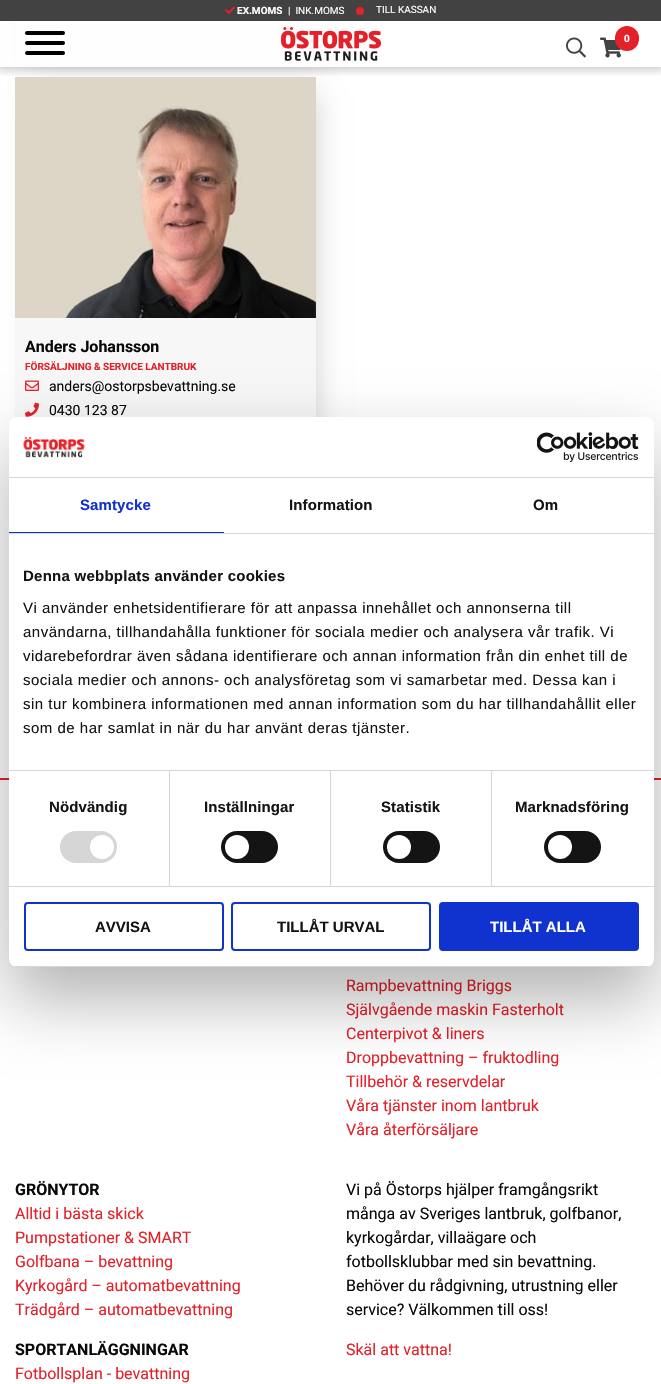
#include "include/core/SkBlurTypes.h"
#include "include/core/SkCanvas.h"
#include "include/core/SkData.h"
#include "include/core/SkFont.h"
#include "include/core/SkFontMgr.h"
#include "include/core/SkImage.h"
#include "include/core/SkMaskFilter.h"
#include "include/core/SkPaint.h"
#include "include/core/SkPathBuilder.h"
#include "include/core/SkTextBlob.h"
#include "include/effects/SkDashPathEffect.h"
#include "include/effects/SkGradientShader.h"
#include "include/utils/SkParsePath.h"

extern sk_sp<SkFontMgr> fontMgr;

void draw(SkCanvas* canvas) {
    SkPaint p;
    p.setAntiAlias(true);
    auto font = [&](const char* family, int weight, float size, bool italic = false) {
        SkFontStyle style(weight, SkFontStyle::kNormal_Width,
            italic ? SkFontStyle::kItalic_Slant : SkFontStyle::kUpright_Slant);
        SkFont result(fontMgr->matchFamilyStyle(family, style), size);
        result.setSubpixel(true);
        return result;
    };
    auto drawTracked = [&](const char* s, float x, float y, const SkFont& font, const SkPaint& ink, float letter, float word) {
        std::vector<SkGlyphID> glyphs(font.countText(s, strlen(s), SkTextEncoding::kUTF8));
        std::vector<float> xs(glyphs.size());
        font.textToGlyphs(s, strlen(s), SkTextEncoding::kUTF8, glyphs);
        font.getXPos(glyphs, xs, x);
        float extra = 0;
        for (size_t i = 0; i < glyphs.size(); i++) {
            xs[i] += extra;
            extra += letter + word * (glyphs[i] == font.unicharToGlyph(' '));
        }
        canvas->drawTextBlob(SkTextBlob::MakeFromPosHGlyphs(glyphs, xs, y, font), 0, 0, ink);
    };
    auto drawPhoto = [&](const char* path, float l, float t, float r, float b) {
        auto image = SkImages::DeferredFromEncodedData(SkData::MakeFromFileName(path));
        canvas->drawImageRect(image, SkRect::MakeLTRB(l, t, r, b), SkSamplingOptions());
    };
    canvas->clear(0xFFFFFFFF);
    p.setColor(0x29000000);
    p.setMaskFilter(SkMaskFilter::MakeBlur(kNormal_SkBlurStyle, 12.5f));
    canvas->drawRect(SkRect::MakeLTRB(33, -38, 318, 59), p);
    p.setMaskFilter(nullptr);
    p.setMaskFilter(SkMaskFilter::MakeBlur(kNormal_SkBlurStyle, 12.5f));
    canvas->drawRect(SkRect::MakeLTRB(33, 95, 318, 444), p);
    p.setMaskFilter(nullptr);
    p.setColor(0xFFFEFEFE);
    canvas->drawRect(SkRect::MakeLTRB(16, 21, 335, 67), p);
    drawPhoto("media/5.png", 15, 77, 316, 318);
    canvas->save();
    canvas->clipRect(SkRect::MakeLTRB(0, 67, 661, 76));
    p.setColor(0x40292929);
    p.setMaskFilter(SkMaskFilter::MakeBlur(kNormal_SkBlurStyle, 4.5f));
    canvas->drawRect(SkRect::MakeLTRB(-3, -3, 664, 70), p);
    p.setMaskFilter(nullptr);
    canvas->restore();
    p.setColor(0xFF424242);
    canvas->drawRect(SkRect::MakeLTRB(0, 0, 661, 21), p);
    drawPhoto("media/1.png", 225, 6, 235, 14);
    auto font1 = font("Roboto", 700, 10);
    p.setColor(0xFFFEFEFE);
    canvas->drawString("EX.MOMS", 237, 14, font1, p);
    auto font2 = font("Roboto", 400, 10);
    canvas->drawString("|  INK.MOMS", 288, 14, font2, p);
    p.setColor(0xFFE42029);
    canvas->drawCircle(360, 11, 4, p);
    p.setColor(0xFFFEFEFE);
    canvas->drawString("TILL KASSAN", 376, 13, font2, p);
    p.setColor(0xFF000000);
    canvas->drawRoundRect(SkRect::MakeLTRB(25, 51, 65, 55), 2, 2, p);
    canvas->drawRoundRect(SkRect::MakeLTRB(25, 31, 65, 35), 2, 2, p);
    canvas->drawRoundRect(SkRect::MakeLTRB(25, 41, 65, 45), 2, 2, p);
    drawPhoto("media/2.png", 281, 27, 381, 61);
    drawPhoto("media/3.png", 566, 37, 586, 58);
    drawPhoto("media/4.png", 600, 37, 621, 58);
    p.setColor(0xFFE42029);
    canvas->drawRoundRect(SkRect::MakeLTRB(615, 26, 639, 51), 12, 12, p);
    p.setColor(0xFFFEFEFE);
    canvas->drawString("0", 624, 42, font1, p);
    p.setColor(0xFFF7F7F7);
    canvas->drawRect(SkRect::MakeLTRB(15, 318, 316, 418), p);
    auto font3 = font("Roboto", 700, 16);
    p.setColor(0xFF0A0A0A);
    canvas->drawString("Anders Johansson", 25, 352, font3, p);
    p.setColor(0xFFE42029);
    canvas->drawString("FÖRSÄLJNING & SERVICE LANTBRUK", 25, 370, font1, p);
    drawPhoto("media/6.png", 25, 380, 39, 391);
    auto font4 = font("Roboto", 400, 14);
    p.setColor(0xFF0A0A0A);
    canvas->drawString("anders@ostorpsbevattning.se", 49, 391, font4, p);
    drawPhoto("media/7.png", 25, 402, 39, 417);
    canvas->drawString("0430 123 87", 49, 415, font4, p);
    p.setColor(0xFFE42029);
    canvas->drawRect(SkRect::MakeLTRB(0, 778, 661, 780), p);
    auto font5 = font("Roboto", 400, 16);
    {
        const struct { const char* s; float x, y; } items[] = {
            {"Rampbevattning Briggs", 346, 991},
            {"Självgående maskin Fasterholt", 346, 1015},
            {"Centerpivot & liners", 346, 1039},
            {"Droppbevattning – fruktodling", 346, 1063},
            {"Tillbehör & reservdelar", 346, 1087},
            {"Våra tjänster inom lantbruk", 346, 1111},
            {"Våra återförsäljare", 346, 1135},
        };
        for (auto [s, x, y] : items) {
            canvas->drawString(s, x, y, font5, p);
        }
    }
    p.setColor(0xFF0A0A0A);
    canvas->drawString("GRÖNYTOR", 15, 1195, font3, p);
    p.setColor(0xFFE42029);
    {
        const struct { const char* s; float x, y; } items[] = {
            {"Alltid i bästa skick", 15, 1219},
            {"Pumpstationer & SMART", 15, 1243},
            {"Golfbana – bevattning", 15, 1267},
            {"Kyrkogård – automatbevattning", 15, 1291},
            {"Trädgård – automatbevattning", 15, 1315},
        };
        for (auto [s, x, y] : items) {
            canvas->drawString(s, x, y, font5, p);
        }
    }
    p.setColor(0xFF0A0A0A);
    canvas->drawString("SPORTANLÄGGNINGAR", 15, 1355, font3, p);
    p.setColor(0xFFE42029);
    canvas->drawString("Fotbollsplan - bevattning", 15, 1379, font5, p);
    p.setColor(0xFF0A0A0A);
    {
        const struct { const char* s; float x, y; } items[] = {
            {"Vi på Östorps hjälper framgångsrikt", 346, 1195},
            {"många av Sveriges lantbruk, golfbanor,", 346, 1219},
            {"kyrkogårdar, villaägare och", 346, 1243},
            {"fotbollsklubbar med sin bevattning.", 346, 1267},
            {"Behöver du rådgivning, utrustning eller", 346, 1291},
            {"service? Välkommen till oss!", 346, 1315},
        };
        for (auto [s, x, y] : items) {
            canvas->drawString(s, x, y, font5, p);
        }
    }
    p.setColor(0xFFE42029);
    canvas->drawString("Skäl att vattna!", 346, 1355, font5, p);
    p.setColor(0x4D000000);
    p.setMaskFilter(SkMaskFilter::MakeBlur(kNormal_SkBlurStyle, 34));
    canvas->drawRoundRect(SkRect::MakeLTRB(9, 449, 654, 999), 8, 8, p);
    p.setMaskFilter(nullptr);
    p.setColor(0xFFFFFFFF);
    canvas->drawRoundRect(SkRect::MakeLTRB(9, 417, 654, 967), 8, 8, p);
    p.setColor(0xFFD6D6D6);
    canvas->drawRect(SkRect::MakeLTRB(9, 477, 654, 478), p);
    drawPhoto("media/8.png", 23, 436, 85, 458);
    drawPhoto("media/9.png", 537, 432, 639, 462);
    canvas->drawRect(SkRect::MakeLTRB(9, 533, 654, 534), p);
    p.setColor(0xFF1032CF);
    canvas->drawRect(SkRect::MakeLTRB(9, 532, 224, 533), p);
    auto font6 = font("Liberation Sans", 700, 15);
    drawTracked("Samtycke", 80, 510, font6, p, 0.1f, 0);
    p.setColor(0xFF141414);
    drawTracked("Information", 289, 510, font6, p, 0.1f, 0);
    drawTracked("Om", 533, 510, font6, p, 0.1f, 0);
    p.setColor(0xFFD6D6D6);
    canvas->drawRect(SkRect::MakeLTRB(9, 770, 654, 771), p);
    p.setColor(0xFF141414);
    drawTracked("Denna webbplats använder cookies", 23, 581, font6, p, 0.25f, 0);
    auto font7 = font("Liberation Sans", 400, 15);
    {
        const struct { const char* s; float x, y; } items[] = {
            {"Vi använder enhetsidentifierare för att anpassa innehållet och annonserna till", 23, 613},
            {"användarna, tillhandahålla funktioner för sociala medier och analysera vår trafik. Vi", 23, 637},
            {"vidarebefordrar även sådana identifierare och annan information från din enhet till de", 23, 661},
            {"sociala medier och annons- och analysföretag som vi samarbetar med. Dessa kan i", 23, 685},
            {"sin tur kombinera informationen med annan information som du har tillhandahållit eller", 23, 709},
            {"som de har samlat in när du har använt deras tjänster.", 23, 733},
        };
        for (auto [s, x, y] : items) {
            drawTracked(s, x, y, font7, p, 0.5f, 0);
        }
    }
    p.setColor(0xFFD6D6D6);
    canvas->drawRect(SkRect::MakeLTRB(9, 886, 654, 887), p);
    canvas->drawRect(SkRect::MakeLTRB(169, 771, 170, 886), p);
    p.setColor(0xFF141414);
    drawTracked("Nödvändig", 49, 812, font6, p, 0.1f, 0);
    p.setColor(0xFFD6D6D6);
    canvas->drawRoundRect(SkRect::MakeLTRB(60, 831, 117, 863), 16, 16, p);
    p.setColor(0xFFFFFFFF);
    canvas->drawCircle(102, 847, 12, p);
    p.setColor(0xFFD6D6D6);
    canvas->drawRect(SkRect::MakeLTRB(330, 771, 331, 886), p);
    p.setColor(0xFF141414);
    drawTracked("Inställningar", 204, 812, font6, p, 0.1f, 0);
    canvas->drawRoundRect(SkRect::MakeLTRB(221, 831, 278, 863), 16, 16, p);
    p.setColor(0xFFFFFFFF);
    canvas->drawCircle(237, 847, 12, p);
    p.setColor(0xFFD6D6D6);
    canvas->drawRect(SkRect::MakeLTRB(491, 771, 492, 886), p);
    p.setColor(0xFF141414);
    drawTracked("Statistik", 381, 812, font6, p, 0.1f, 0);
    canvas->drawRoundRect(SkRect::MakeLTRB(383, 831, 440, 863), 16, 16, p);
    p.setColor(0xFFFFFFFF);
    canvas->drawCircle(399, 847, 12, p);
    p.setColor(0xFF141414);
    drawTracked("Marknadsföring", 515, 812, font6, p, 0.1f, 0);
    canvas->drawRoundRect(SkRect::MakeLTRB(544, 831, 601, 863), 16, 16, p);
    p.setColor(0xFFFFFFFF);
    canvas->drawCircle(560, 847, 12, p);
    canvas->save();
    canvas->clipPath(SkPathBuilder().moveTo(17, 417).lineTo(646, 417).cubicTo(650.5f, 417, 654, 420.5f, 654, 425).lineTo(654, 959).cubicTo(654, 963.5f, 650.5f, 967, 646, 967).lineTo(17, 967).cubicTo(12.5f, 967, 9, 963.5f, 9, 959).lineTo(9, 425).cubicTo(9, 420.5f, 12.5f, 417, 17, 417).close().detach(), true);
    p.setColor(0xFFD6D6D6);
    canvas->drawRect(SkRect::MakeLTRB(9, 966, 654, 967), p);
    canvas->restore();
    p.setStyle(SkPaint::kStroke_Style);
    p.setStrokeWidth(2);
    p.setColor(0xFF1032CF);
    canvas->drawRoundRect(SkRect::MakeLTRB(25, 903, 223, 950), 3, 3, p);
    p.setStyle(SkPaint::kFill_Style);
    p.setColor(0xFF141414);
    canvas->drawString("AVVISA", 95, 932, font6, p);
    p.setStyle(SkPaint::kStroke_Style);
    p.setColor(0xFF1032CF);
    canvas->drawRoundRect(SkRect::MakeLTRB(232, 903, 430, 950), 3, 3, p);
    p.setStyle(SkPaint::kFill_Style);
    p.setColor(0xFF141414);
    canvas->drawString("TILLÅT URVAL", 277, 932, font6, p);
    p.setColor(0xFF1032CF);
    canvas->drawRoundRect(SkRect::MakeLTRB(440, 903, 638, 950), 3, 3, p);
    p.setStyle(SkPaint::kStroke_Style);
    canvas->drawRoundRect(SkRect::MakeLTRB(440, 903, 638, 950), 3, 3, p);
    p.setStyle(SkPaint::kFill_Style);
    p.setColor(0xFFFEFEFE);
    canvas->drawString("TILLÅT ALLA", 490, 932, font6, p);
}
